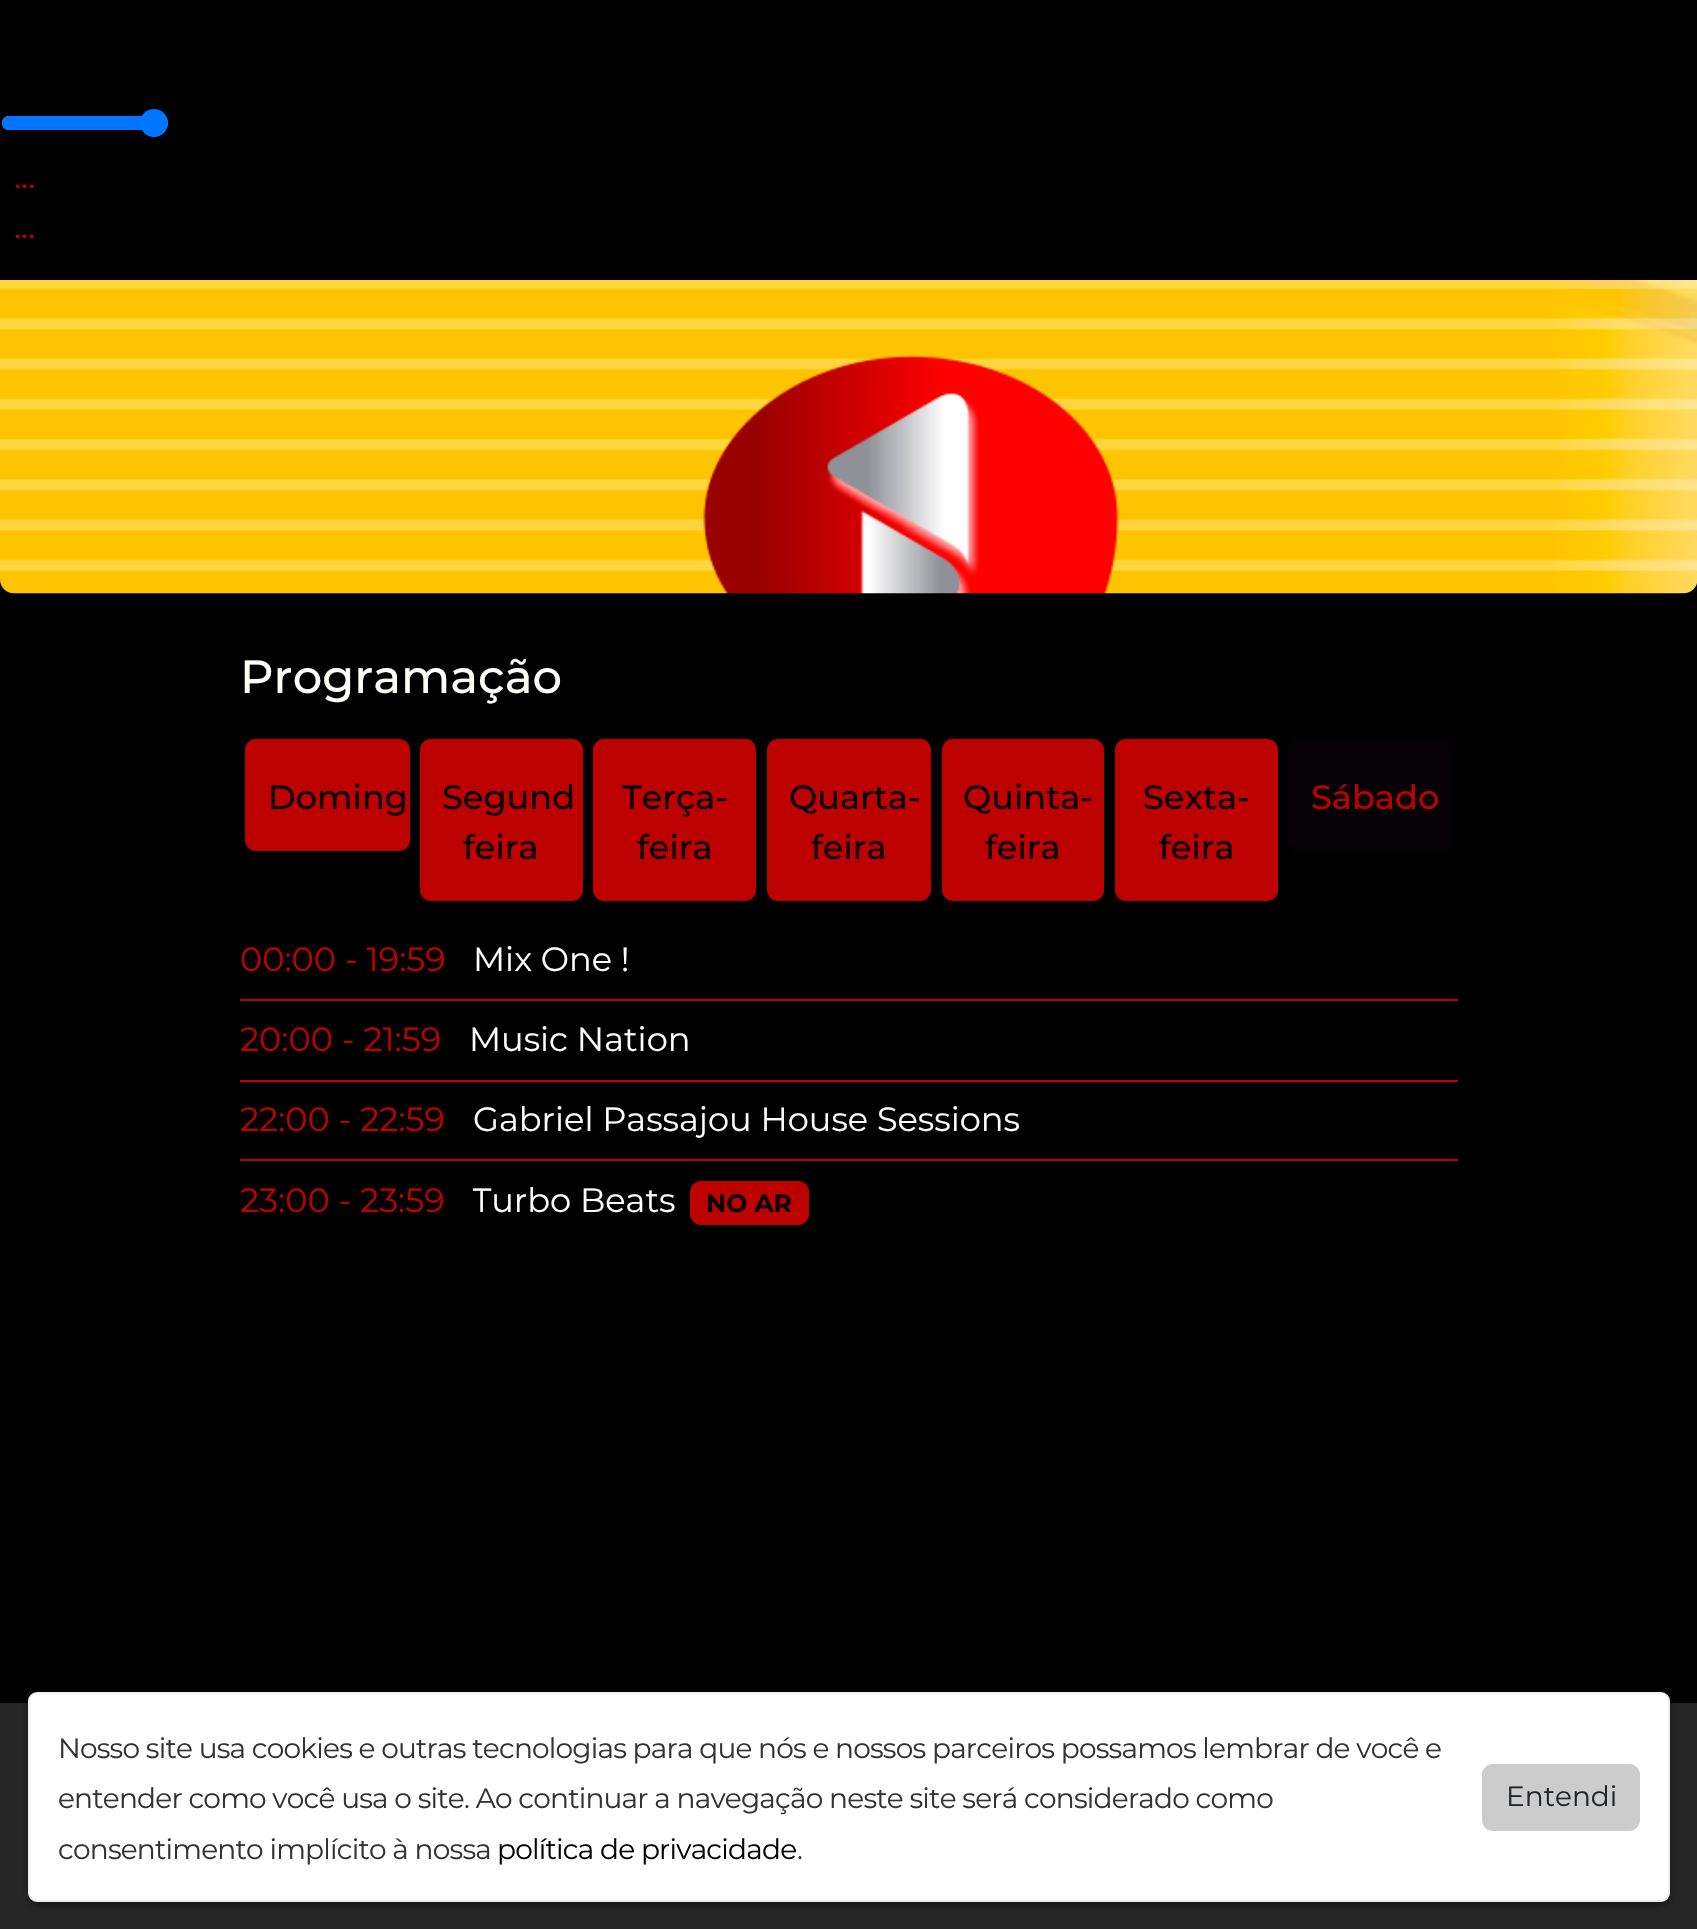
#include "include/core/SkBlurTypes.h"
#include "include/core/SkCanvas.h"
#include "include/core/SkData.h"
#include "include/core/SkFont.h"
#include "include/core/SkFontMgr.h"
#include "include/core/SkImage.h"
#include "include/core/SkMaskFilter.h"
#include "include/core/SkPaint.h"
#include "include/core/SkPathBuilder.h"
#include "include/core/SkTextBlob.h"
#include "include/effects/SkDashPathEffect.h"
#include "include/effects/SkGradientShader.h"
#include "include/utils/SkParsePath.h"

extern sk_sp<SkFontMgr> fontMgr;

void draw(SkCanvas* canvas) {
    SkPaint p;
    p.setAntiAlias(true);
    auto font = [&](const char* family, int weight, float size, bool italic = false) {
        SkFontStyle style(weight, SkFontStyle::kNormal_Width,
            italic ? SkFontStyle::kItalic_Slant : SkFontStyle::kUpright_Slant);
        SkFont result(fontMgr->matchFamilyStyle(family, style), size);
        result.setSubpixel(true);
        return result;
    };
    auto drawTracked = [&](const char* s, float x, float y, const SkFont& font, const SkPaint& ink, float letter, float word) {
        std::vector<SkGlyphID> glyphs(font.countText(s, strlen(s), SkTextEncoding::kUTF8));
        std::vector<float> xs(glyphs.size());
        font.textToGlyphs(s, strlen(s), SkTextEncoding::kUTF8, glyphs);
        font.getXPos(glyphs, xs, x);
        float extra = 0;
        for (size_t i = 0; i < glyphs.size(); i++) {
            xs[i] += extra;
            extra += letter + word * (glyphs[i] == font.unicharToGlyph(' '));
        }
        canvas->drawTextBlob(SkTextBlob::MakeFromPosHGlyphs(glyphs, xs, y, font), 0, 0, ink);
    };
    auto drawPhoto = [&](const char* path, float l, float t, float r, float b) {
        auto image = SkImages::DeferredFromEncodedData(SkData::MakeFromFileName(path));
        canvas->drawImageRect(image, SkRect::MakeLTRB(l, t, r, b), SkSamplingOptions());
    };
    canvas->clear(0xFF000000);
    p.setColor(0xFF151515);
    canvas->drawRoundRect(SkRect::MakeLTRB(0, 208, 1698, 593), 14, 14, p);
    p.setColor(0xFF000000);
    canvas->drawRect(SkRect::MakeLTRB(0, 208, 1697, 280), p);
    p.setStyle(SkPaint::kStroke_Style);
    p.setStrokeWidth(2);
    p.setColor(0xFFB2B2B2);
    canvas->drawRoundRect(SkRect::MakeLTRB(3, 117, 167, 129), 6, 6, p);
    p.setStyle(SkPaint::kFill_Style);
    p.setColor(0xFF0075FF);
    canvas->drawPath(SkPathBuilder().moveTo(9, 116).lineTo(154, 116).lineTo(154, 130).lineTo(9, 130).cubicTo(5, 130, 2, 127, 2, 123).cubicTo(2, 119, 5, 116, 9, 116).close().detach(), p);
    canvas->drawCircle(154, 123, 14, p);
    auto font1 = font("Montserrat", 400, 33.6f);
    p.setColor(0xFFBD0000);
    canvas->drawString("...", 14, 188, font1, p);
    canvas->drawString("...", 14, 238, font1, p);
    drawPhoto("media/1.png", 0, 280, 1697, 594);
    auto font2 = font("Montserrat", 500, 46.5f);
    p.setColor(0xFFFFFFFA);
    canvas->drawString("Programação", 240, 693, font2, p);
    p.setColor(0xFFBD0000);
    canvas->drawRoundRect(SkRect::MakeLTRB(245, 739, 410, 851), 11, 11, p);
    auto font3 = font("Montserrat", 500, 33.6f);
    p.setColor(0xFF050105);
    canvas->drawString("Doming", 268, 809, font3, p);
    p.setColor(0xFFBD0000);
    canvas->drawRoundRect(SkRect::MakeLTRB(420, 739, 583, 901), 11, 11, p);
    p.setColor(0xFF050105);
    canvas->drawString("Segund", 442, 809, font3, p);
    canvas->drawString("feira", 463, 859, font3, p);
    p.setColor(0xFFBD0000);
    canvas->drawRoundRect(SkRect::MakeLTRB(593, 739, 756, 901), 11, 11, p);
    p.setColor(0xFF050105);
    canvas->drawString("Terça-", 622, 809, font3, p);
    canvas->drawString("feira", 637, 859, font3, p);
    p.setColor(0xFFBD0000);
    canvas->drawRoundRect(SkRect::MakeLTRB(767, 739, 931, 901), 11, 11, p);
    p.setColor(0xFF050105);
    canvas->drawString("Quarta-", 789, 809, font3, p);
    canvas->drawString("feira", 811, 859, font3, p);
    p.setColor(0xFFBD0000);
    canvas->drawRoundRect(SkRect::MakeLTRB(942, 739, 1104, 901), 11, 11, p);
    p.setColor(0xFF050105);
    canvas->drawString("Quinta-", 963, 809, font3, p);
    canvas->drawString("feira", 985, 859, font3, p);
    p.setColor(0xFFBD0000);
    canvas->drawRoundRect(SkRect::MakeLTRB(1115, 739, 1278, 901), 11, 11, p);
    p.setColor(0xFF050105);
    canvas->drawString("Sexta-", 1143, 809, font3, p);
    canvas->drawString("feira", 1159, 859, font3, p);
    canvas->drawRoundRect(SkRect::MakeLTRB(1288, 739, 1453, 851), 11, 11, p);
    p.setColor(0xFFBD0000);
    canvas->drawString("Sábado", 1311, 809, font3, p);
    canvas->drawRect(SkRect::MakeLTRB(240, 999, 1458, 1001), p);
    canvas->drawString("00:00 - 19:59", 240, 971, font1, p);
    p.setColor(0xFFFFFFFA);
    canvas->drawString("Mix One !", 473, 971, font1, p);
    p.setColor(0xFFBD0000);
    canvas->drawRect(SkRect::MakeLTRB(240, 1080, 1458, 1082), p);
    canvas->drawString("20:00 - 21:59", 240, 1051, font1, p);
    p.setColor(0xFFFFFFFA);
    canvas->drawString("Music Nation", 469, 1051, font1, p);
    p.setColor(0xFFBD0000);
    canvas->drawRect(SkRect::MakeLTRB(240, 1159, 1458, 1161), p);
    canvas->drawString("22:00 - 22:59", 240, 1131, font1, p);
    p.setColor(0xFFFFFFFA);
    canvas->drawString("Gabriel Passajou House Sessions", 473, 1131, font1, p);
    p.setColor(0xFFBD0000);
    canvas->drawString("23:00 - 23:59", 240, 1212, font1, p);
    canvas->save();
    canvas->clipRect(SkRect::MakeLTRB(473, 1174, 1430, 1225));
    p.setColor(0xFFFFFFFA);
    canvas->drawString("Turbo Beats", 472, 1212, font1, p);
    canvas->restore();
    p.setColor(0xFFBD0000);
    canvas->drawRoundRect(SkRect::MakeLTRB(690, 1181, 809, 1225), 11, 11, p);
    auto font4 = font("Montserrat", 700, 25);
    p.setColor(0xFF050105);
    canvas->drawString("NO AR", 706, 1212, font4, p);
    p.setColor(0xFF262626);
    canvas->drawRect(SkRect::MakeLTRB(0, 1703, 1697, 1929), p);
    p.setColor(0x66000000);
    p.setMaskFilter(SkMaskFilter::MakeBlur(kNormal_SkBlurStyle, 3.5f));
    canvas->drawRoundRect(SkRect::MakeLTRB(28, 1696, 1670, 1906), 9, 9, p);
    p.setMaskFilter(nullptr);
    p.setColor(0xFFFFFFFF);
    canvas->drawRoundRect(SkRect::MakeLTRB(29, 1693, 1669, 1901), 8, 8, p);
    p.setStyle(SkPaint::kStroke_Style);
    p.setColor(0xFFEEEEEE);
    canvas->drawRoundRect(SkRect::MakeLTRB(29, 1693, 1669, 1901), 8, 8, p);
    auto font5 = font("Montserrat", 400, 28);
    p.setStyle(SkPaint::kFill_Style);
    p.setColor(0xFF333333);
    {
        const struct { const char* s; float x, y; } items[] = {
            {"Nosso site usa cookies e outras tecnologias para que nós e nossos parceiros possamos lembrar de você e", 58, 1758},
            {"entender como você usa o site. Ao continuar a navegação neste site será considerado como", 58, 1808},
            {"consentimento implícito à nossa", 58, 1859},
        };
        for (auto [s, x, y] : items) {
            drawTracked(s, x, y, font5, p, -0.79f, 0);
        }
    }
    p.setColor(0xFF050105);
    drawTracked("política de privacidade", 497, 1859, font5, p, -0.79f, 0);
    p.setColor(0xFF333333);
    drawTracked(".", 797, 1859, font5, p, -0.79f, 0);
    p.setColor(0xFFCCCCCC);
    canvas->drawRoundRect(SkRect::MakeLTRB(1482, 1764, 1640, 1831), 11, 11, p);
    p.setColor(0xFF212529);
    canvas->drawString("Entendi", 1506, 1806, font5, p);
}
